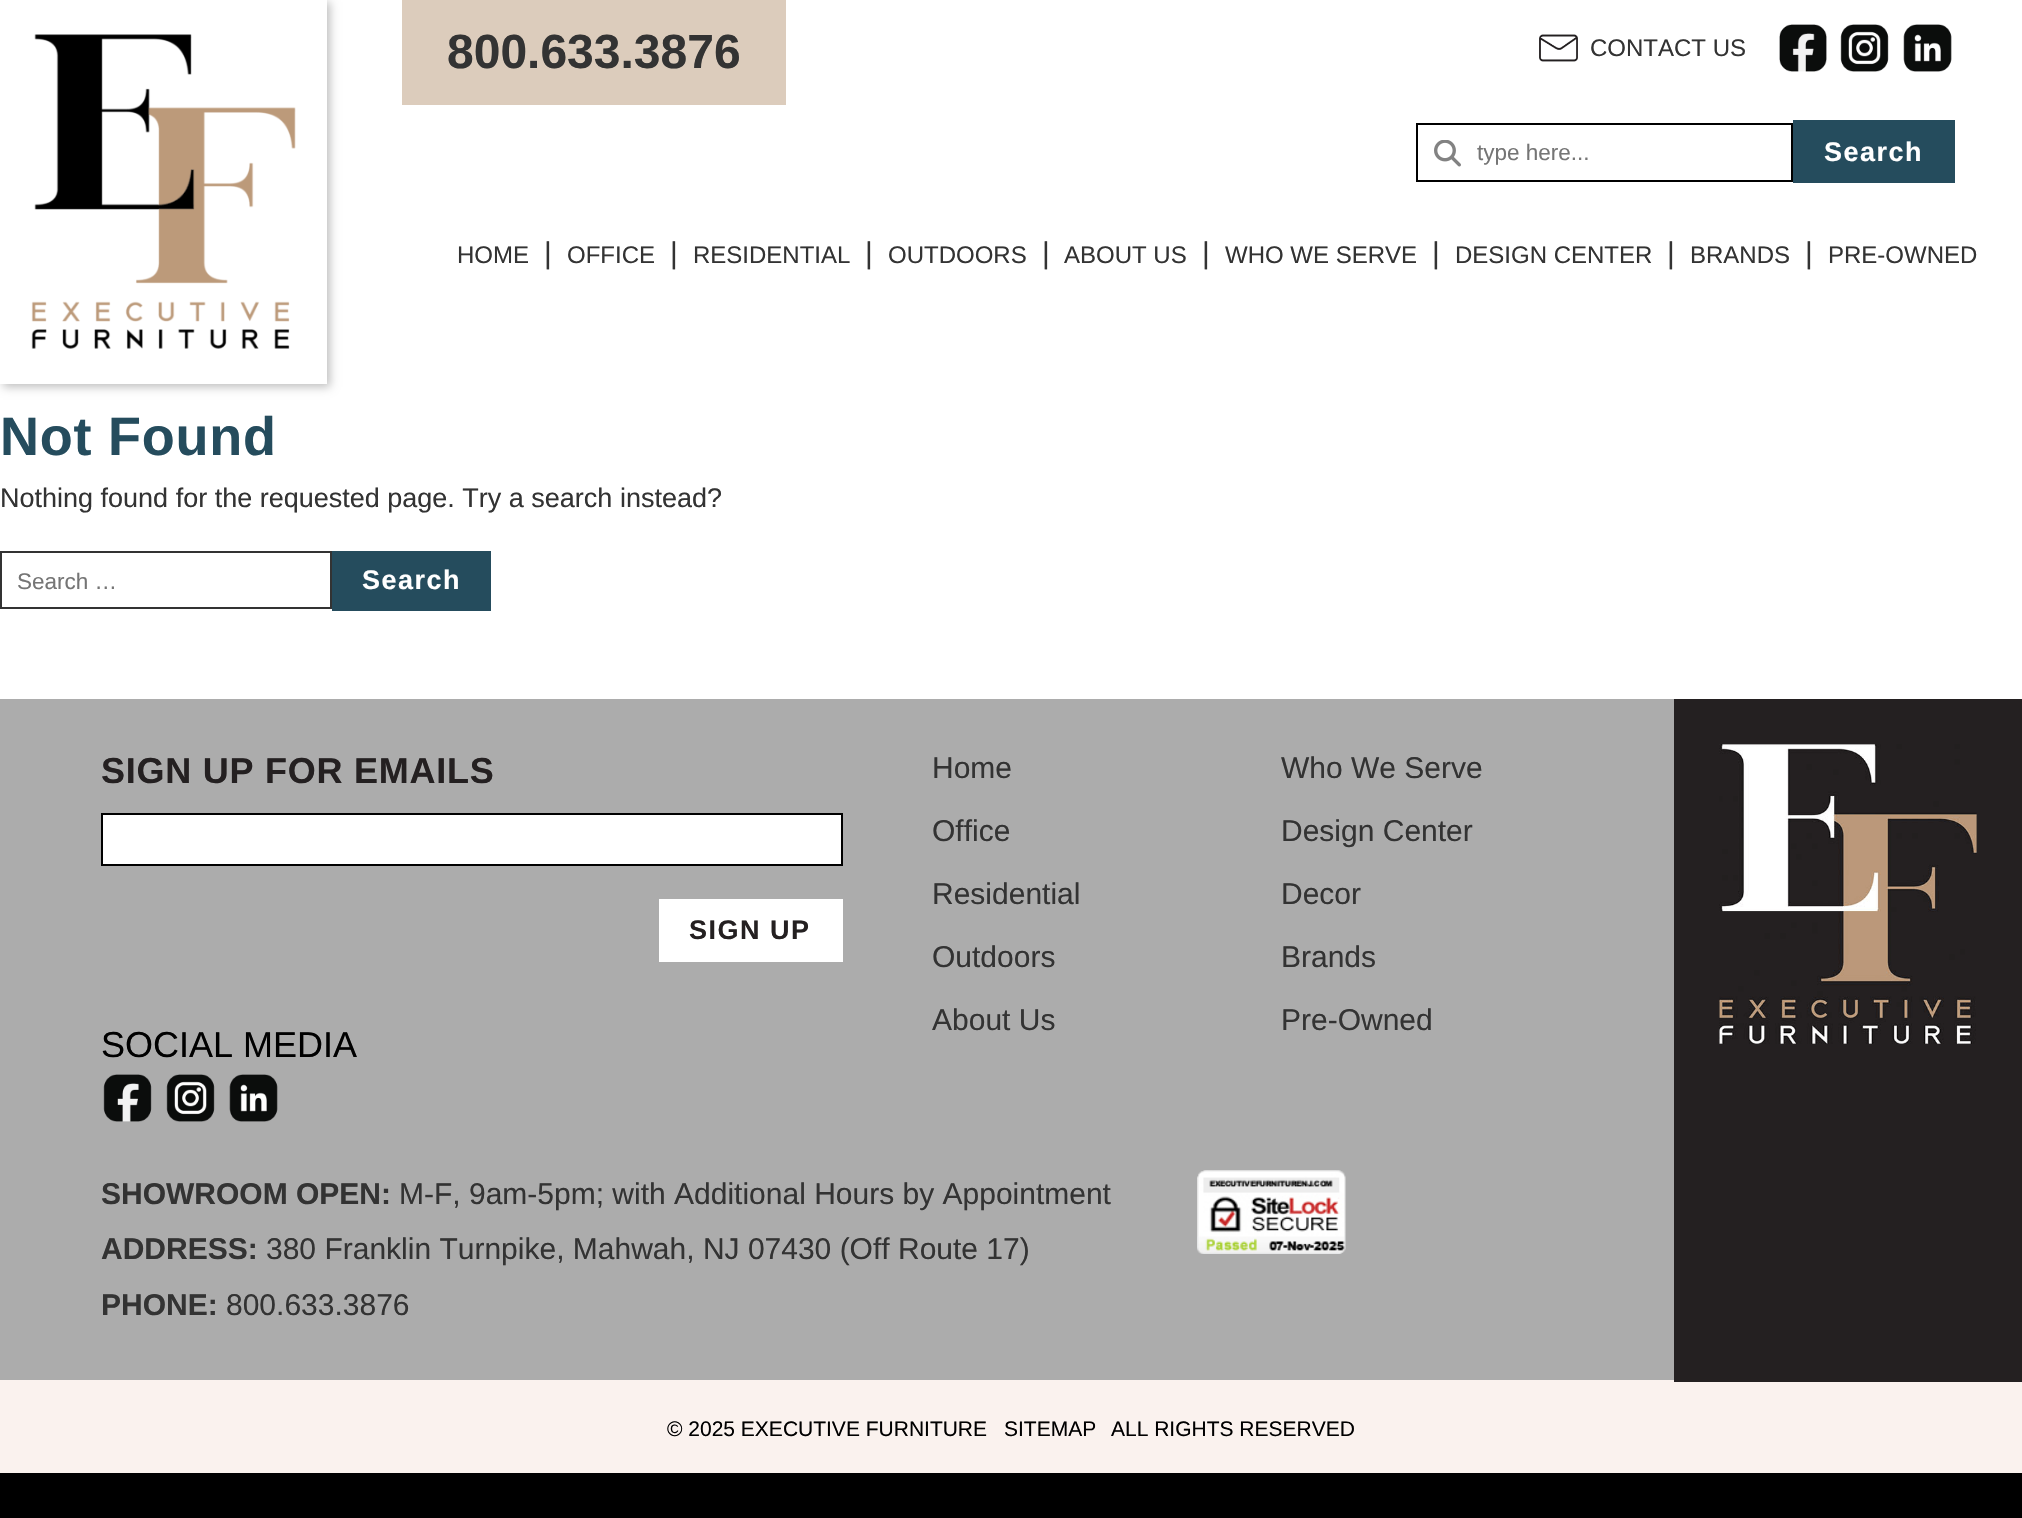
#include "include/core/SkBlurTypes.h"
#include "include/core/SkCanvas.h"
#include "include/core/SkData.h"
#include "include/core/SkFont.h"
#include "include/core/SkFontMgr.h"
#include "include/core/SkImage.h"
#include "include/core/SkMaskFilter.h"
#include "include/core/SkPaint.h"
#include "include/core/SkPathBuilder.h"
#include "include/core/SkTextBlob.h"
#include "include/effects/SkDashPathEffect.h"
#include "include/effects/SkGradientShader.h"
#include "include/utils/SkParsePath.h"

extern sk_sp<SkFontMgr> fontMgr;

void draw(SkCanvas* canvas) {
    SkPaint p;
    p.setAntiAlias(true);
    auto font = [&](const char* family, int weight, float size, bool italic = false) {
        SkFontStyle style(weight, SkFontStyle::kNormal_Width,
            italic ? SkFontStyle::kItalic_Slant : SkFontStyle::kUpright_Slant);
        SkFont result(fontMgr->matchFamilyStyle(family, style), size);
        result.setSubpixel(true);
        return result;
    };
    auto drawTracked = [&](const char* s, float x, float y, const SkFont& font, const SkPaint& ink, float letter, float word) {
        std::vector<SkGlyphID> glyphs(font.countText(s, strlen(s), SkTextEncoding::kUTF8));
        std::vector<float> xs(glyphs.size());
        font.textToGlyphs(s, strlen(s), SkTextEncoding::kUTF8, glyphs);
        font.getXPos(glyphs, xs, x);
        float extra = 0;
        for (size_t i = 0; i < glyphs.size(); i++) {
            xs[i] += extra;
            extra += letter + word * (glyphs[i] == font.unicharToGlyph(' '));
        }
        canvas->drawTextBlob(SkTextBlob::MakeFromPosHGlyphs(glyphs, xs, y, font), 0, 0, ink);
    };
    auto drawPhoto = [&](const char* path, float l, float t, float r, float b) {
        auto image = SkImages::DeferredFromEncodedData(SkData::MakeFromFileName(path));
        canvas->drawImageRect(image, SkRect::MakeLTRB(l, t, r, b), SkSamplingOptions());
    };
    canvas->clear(0xFF000000);
    p.setColor(0xFFFFFFFF);
    canvas->drawRect(SkRect::MakeLTRB(0, 0, 2022, 699), p);
    canvas->save();
    canvas->clipPath(SkPathBuilder(SkPathFillType::kEvenOdd).moveTo(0, 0).lineTo(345, 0).lineTo(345, 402).lineTo(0, 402).close().moveTo(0, -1).lineTo(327, -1).lineTo(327, 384).lineTo(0, 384).close().detach(), true);
    p.setColor(0xFFBEBEBE);
    p.setMaskFilter(SkMaskFilter::MakeBlur(kNormal_SkBlurStyle, 4.5f));
    canvas->drawRect(SkRect::MakeLTRB(3, 2, 330, 387), p);
    p.setMaskFilter(nullptr);
    canvas->restore();
    drawPhoto("media/1.png", 31, 34, 296, 349);
    p.setColor(0xFFDCCCBC);
    canvas->drawRect(SkRect::MakeLTRB(402, 0, 786, 105), p);
    auto font1 = font("Liberation Sans", 700, 48);
    p.setColor(0xFF333333);
    canvas->drawString("800.633.3876", 447, 68, font1, p);
    drawPhoto("media/2.png", 1539, 34, 1578, 62);
    auto font2 = font("Liberation Sans", 400, 24);
    canvas->drawString("CONTACT US", 1590, 56, font2, p);
    drawPhoto("media/3.png", 1779, 24, 1827, 72);
    drawPhoto("media/4.png", 1840, 24, 1889, 72);
    drawPhoto("media/5.png", 1903, 24, 1952, 72);
    p.setStyle(SkPaint::kStroke_Style);
    p.setStrokeWidth(2);
    p.setColor(0xFF000000);
    canvas->drawRect(SkRect::MakeLTRB(1417, 124, 1792, 181), p);
    drawPhoto("media/6.png", 1434, 140, 1461, 167);
    auto font3 = font("Liberation Sans", 400, 22.5f);
    p.setStyle(SkPaint::kFill_Style);
    p.setColor(0xFF757575);
    canvas->drawString("type here...", 1477, 160, font3, p);
    p.setColor(0xFF254C5D);
    canvas->drawRect(SkRect::MakeLTRB(1793, 120, 1955, 183), p);
    auto font4 = font("Liberation Sans", 700, 27);
    p.setColor(0xFFFFFFFF);
    drawTracked("Search", 1824, 161, font4, p, 1.5f, 0);
    p.setColor(0xFF333333);
    canvas->drawString("HOME", 457, 263, font2, p);
    auto font5 = font("Liberation Sans", 400, 30);
    canvas->drawString("|", 544, 263, font5, p);
    canvas->drawString("OFFICE", 567, 263, font2, p);
    canvas->drawString("|", 670, 263, font5, p);
    canvas->drawString("RESIDENTIAL", 693, 263, font2, p);
    canvas->drawString("|", 865, 263, font5, p);
    canvas->drawString("OUTDOORS", 888, 263, font2, p);
    canvas->drawString("|", 1042, 263, font5, p);
    canvas->drawString("ABOUT US", 1064, 263, font2, p);
    canvas->drawString("|", 1202, 263, font5, p);
    canvas->drawString("WHO WE SERVE", 1225, 263, font2, p);
    canvas->drawString("|", 1432, 263, font5, p);
    canvas->drawString("DESIGN CENTER", 1455, 263, font2, p);
    canvas->drawString("|", 1667, 263, font5, p);
    canvas->drawString("BRANDS", 1690, 263, font2, p);
    canvas->drawString("|", 1805, 263, font5, p);
    canvas->drawString("PRE-OWNED", 1828, 263, font2, p);
    auto font6 = font("Liberation Sans", 700, 54);
    p.setColor(0xFF254C5D);
    drawTracked("Not Found", 0, 455, font6, p, 0.75f, 0);
    auto font7 = font("Liberation Sans", 400, 27);
    p.setColor(0xFF333333);
    canvas->drawString("Nothing found for the requested page. Try a search instead?", 0, 507, font7, p);
    p.setStyle(SkPaint::kStroke_Style);
    canvas->drawRect(SkRect::MakeLTRB(1, 552, 331, 608), p);
    p.setStyle(SkPaint::kFill_Style);
    p.setColor(0xFF757575);
    canvas->drawString("Search …", 17, 589, font3, p);
    p.setColor(0xFF254C5D);
    canvas->drawRect(SkRect::MakeLTRB(332, 551, 491, 611), p);
    p.setColor(0xFFFFFFFF);
    drawTracked("Search", 362, 589, font4, p, 1.5f, 0);
    p.setColor(0xFFACACAC);
    canvas->drawRect(SkRect::MakeLTRB(0, 699, 1674, 1380), p);
    auto font8 = font("Liberation Sans", 700, 36);
    p.setColor(0xFF242021);
    drawTracked("SIGN UP FOR EMAILS", 101, 783, font8, p, 0.75f, 0);
    p.setColor(0xFFFFFFFF);
    canvas->drawRect(SkRect::MakeLTRB(102, 814, 842, 865), p);
    p.setStyle(SkPaint::kStroke_Style);
    p.setColor(0xFF000000);
    canvas->drawRect(SkRect::MakeLTRB(102, 814, 842, 865), p);
    p.setStyle(SkPaint::kFill_Style);
    p.setColor(0xFFFFFFFF);
    canvas->drawRect(SkRect::MakeLTRB(659, 899, 843, 962), p);
    p.setColor(0xFF242021);
    drawTracked("SIGN UP", 689, 939, font4, p, 1.5f, 0);
    auto font9 = font("Liberation Sans", 400, 36);
    p.setColor(0xFF000000);
    canvas->drawString("SOCIAL MEDIA", 101, 1057, font9, p);
    drawPhoto("media/7.png", 103, 1074, 152, 1122);
    drawPhoto("media/8.png", 166, 1074, 215, 1122);
    drawPhoto("media/9.png", 229, 1074, 278, 1122);
    p.setColor(0xFF333333);
    {
        const struct { const char* s; float x, y; } items[] = {
            {"Home", 932, 778},
            {"Office", 932, 841},
            {"Residential", 932, 904},
            {"Outdoors", 932, 967},
            {"About Us", 932, 1030},
            {"Who We Serve", 1281, 778},
            {"Design Center", 1281, 841},
            {"Decor", 1281, 904},
            {"Brands", 1281, 967},
            {"Pre-Owned", 1281, 1030},
        };
        for (auto [s, x, y] : items) {
            canvas->drawString(s, x, y, font5, p);
        }
    }
    auto font10 = font("Liberation Sans", 700, 30);
    canvas->drawString("SHOWROOM OPEN:", 101, 1204, font10, p);
    canvas->drawString("M-F, 9am-5pm; with Additional Hours by Appointment", 399, 1204, font5, p);
    canvas->drawString("ADDRESS:", 101, 1259, font10, p);
    canvas->drawString("380 Franklin Turnpike, Mahwah, NJ 07430 (Off Route 17)", 266, 1259, font5, p);
    canvas->drawString("PHONE:", 101, 1315, font10, p);
    canvas->drawString("800.633.3876", 226, 1315, font5, p);
    drawPhoto("media/10.png", 1197, 1170, 1346, 1254);
    p.setColor(0xFFFAF2EE);
    canvas->drawRect(SkRect::MakeLTRB(0, 1380, 2022, 1473), p);
    p.setColor(0xFF242021);
    canvas->drawRect(SkRect::MakeLTRB(1674, 699, 2022, 1382), p);
    drawPhoto("media/11.png", 1719, 744, 1977, 1044);
    auto font11 = font("Liberation Sans", 400, 21);
    p.setColor(0xFF000000);
    {
        const struct { const char* s; float x, y; } items[] = {
            {"© 2025 EXECUTIVE FURNITURE", 667, 1436},
            {"SITEMAP", 1004, 1436},
            {"ALL RIGHTS RESERVED", 1111, 1436},
        };
        for (auto [s, x, y] : items) {
            canvas->drawString(s, x, y, font11, p);
        }
    }
}
